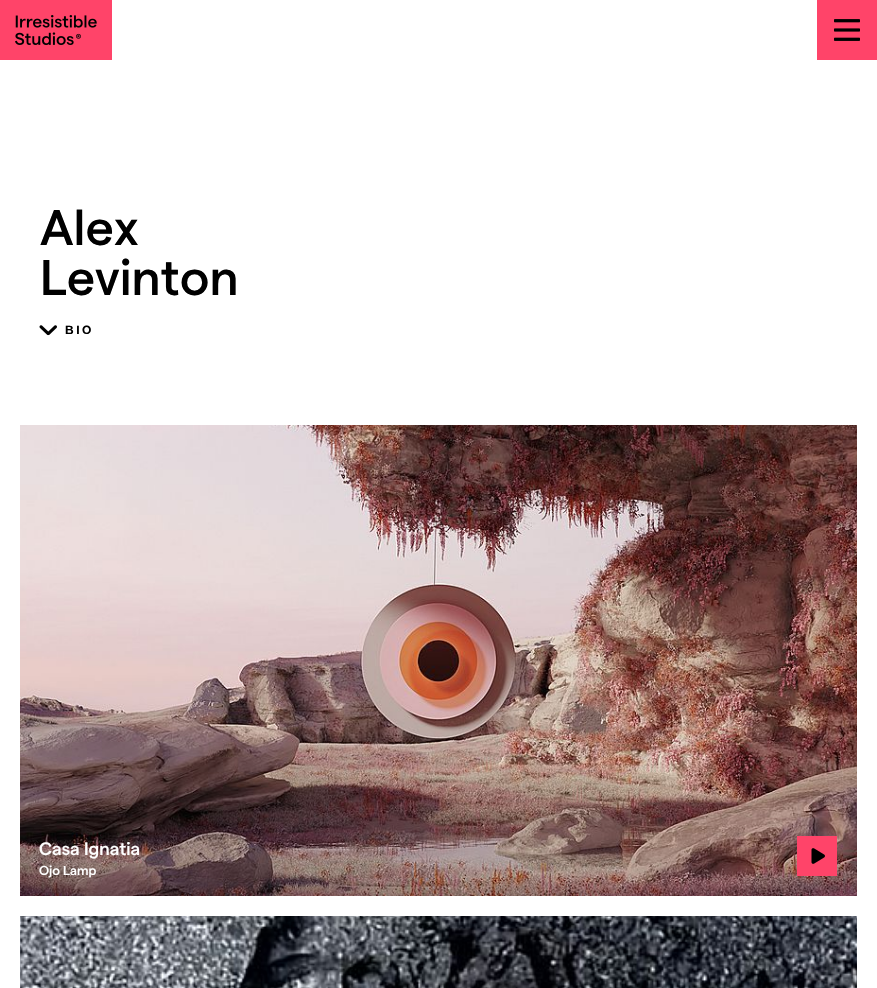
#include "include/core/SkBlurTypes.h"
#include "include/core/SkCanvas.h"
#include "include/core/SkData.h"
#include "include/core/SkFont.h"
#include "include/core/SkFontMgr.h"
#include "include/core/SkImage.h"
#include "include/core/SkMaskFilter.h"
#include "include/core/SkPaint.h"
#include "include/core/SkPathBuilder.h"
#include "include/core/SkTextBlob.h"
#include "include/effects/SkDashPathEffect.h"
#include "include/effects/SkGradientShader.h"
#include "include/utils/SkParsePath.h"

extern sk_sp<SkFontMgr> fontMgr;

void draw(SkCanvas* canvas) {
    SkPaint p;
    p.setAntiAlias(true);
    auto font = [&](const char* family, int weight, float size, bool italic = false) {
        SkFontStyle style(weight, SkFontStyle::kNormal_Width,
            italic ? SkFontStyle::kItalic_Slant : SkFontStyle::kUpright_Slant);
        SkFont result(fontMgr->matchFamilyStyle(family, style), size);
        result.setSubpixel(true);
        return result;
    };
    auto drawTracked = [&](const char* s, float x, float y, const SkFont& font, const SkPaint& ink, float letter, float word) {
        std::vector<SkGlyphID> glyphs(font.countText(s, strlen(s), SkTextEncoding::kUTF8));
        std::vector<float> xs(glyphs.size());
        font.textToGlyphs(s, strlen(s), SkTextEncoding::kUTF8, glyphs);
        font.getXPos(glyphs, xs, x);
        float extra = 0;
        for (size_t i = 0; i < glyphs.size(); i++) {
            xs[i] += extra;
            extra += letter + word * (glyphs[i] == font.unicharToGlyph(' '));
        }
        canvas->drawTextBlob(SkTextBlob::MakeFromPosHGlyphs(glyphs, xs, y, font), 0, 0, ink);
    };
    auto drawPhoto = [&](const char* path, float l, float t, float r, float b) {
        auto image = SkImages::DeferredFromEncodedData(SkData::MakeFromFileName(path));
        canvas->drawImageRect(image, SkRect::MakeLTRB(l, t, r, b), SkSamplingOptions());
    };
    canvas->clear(0xFFFFFFFF);
    p.setColor(0xFFFF4469);
    canvas->drawRect(SkRect::MakeLTRB(0, 0, 112, 60), p);
    drawPhoto("media/1.png", 15, 15, 97, 45);
    canvas->drawRect(SkRect::MakeLTRB(817, 0, 877, 60), p);
    drawPhoto("media/2.png", 834, 19, 860, 41);
    auto font1 = font("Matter", 500, 50);
    p.setColor(0xFF000000);
    canvas->drawString("Alex", 40, 245, font1, p);
    canvas->drawString("Levinton", 40, 295, font1, p);
    drawPhoto("media/3.png", 39, 325, 57, 336);
    auto font2 = font("Liberation Sans", 700, 12);
    drawTracked("BIO", 65, 334, font2, p, 2.5f, 0);
    drawPhoto("media/4.png", 20, 425, 857, 896);
    auto font3 = font("Matter", 500, 18);
    p.setColor(0xFFFFFFFF);
    canvas->drawString("Casa Ignatia", 39, 855, font3, p);
    auto font4 = font("Matter", 500, 13);
    canvas->drawString("Ojo Lamp", 39, 875, font4, p);
    p.setColor(0xFFFF4469);
    canvas->drawRect(SkRect::MakeLTRB(797, 836, 837, 876), p);
    drawPhoto("media/5.png", 811, 848, 825, 864);
    drawPhoto("media/6.png", 20, 916, 857, 988);
}
